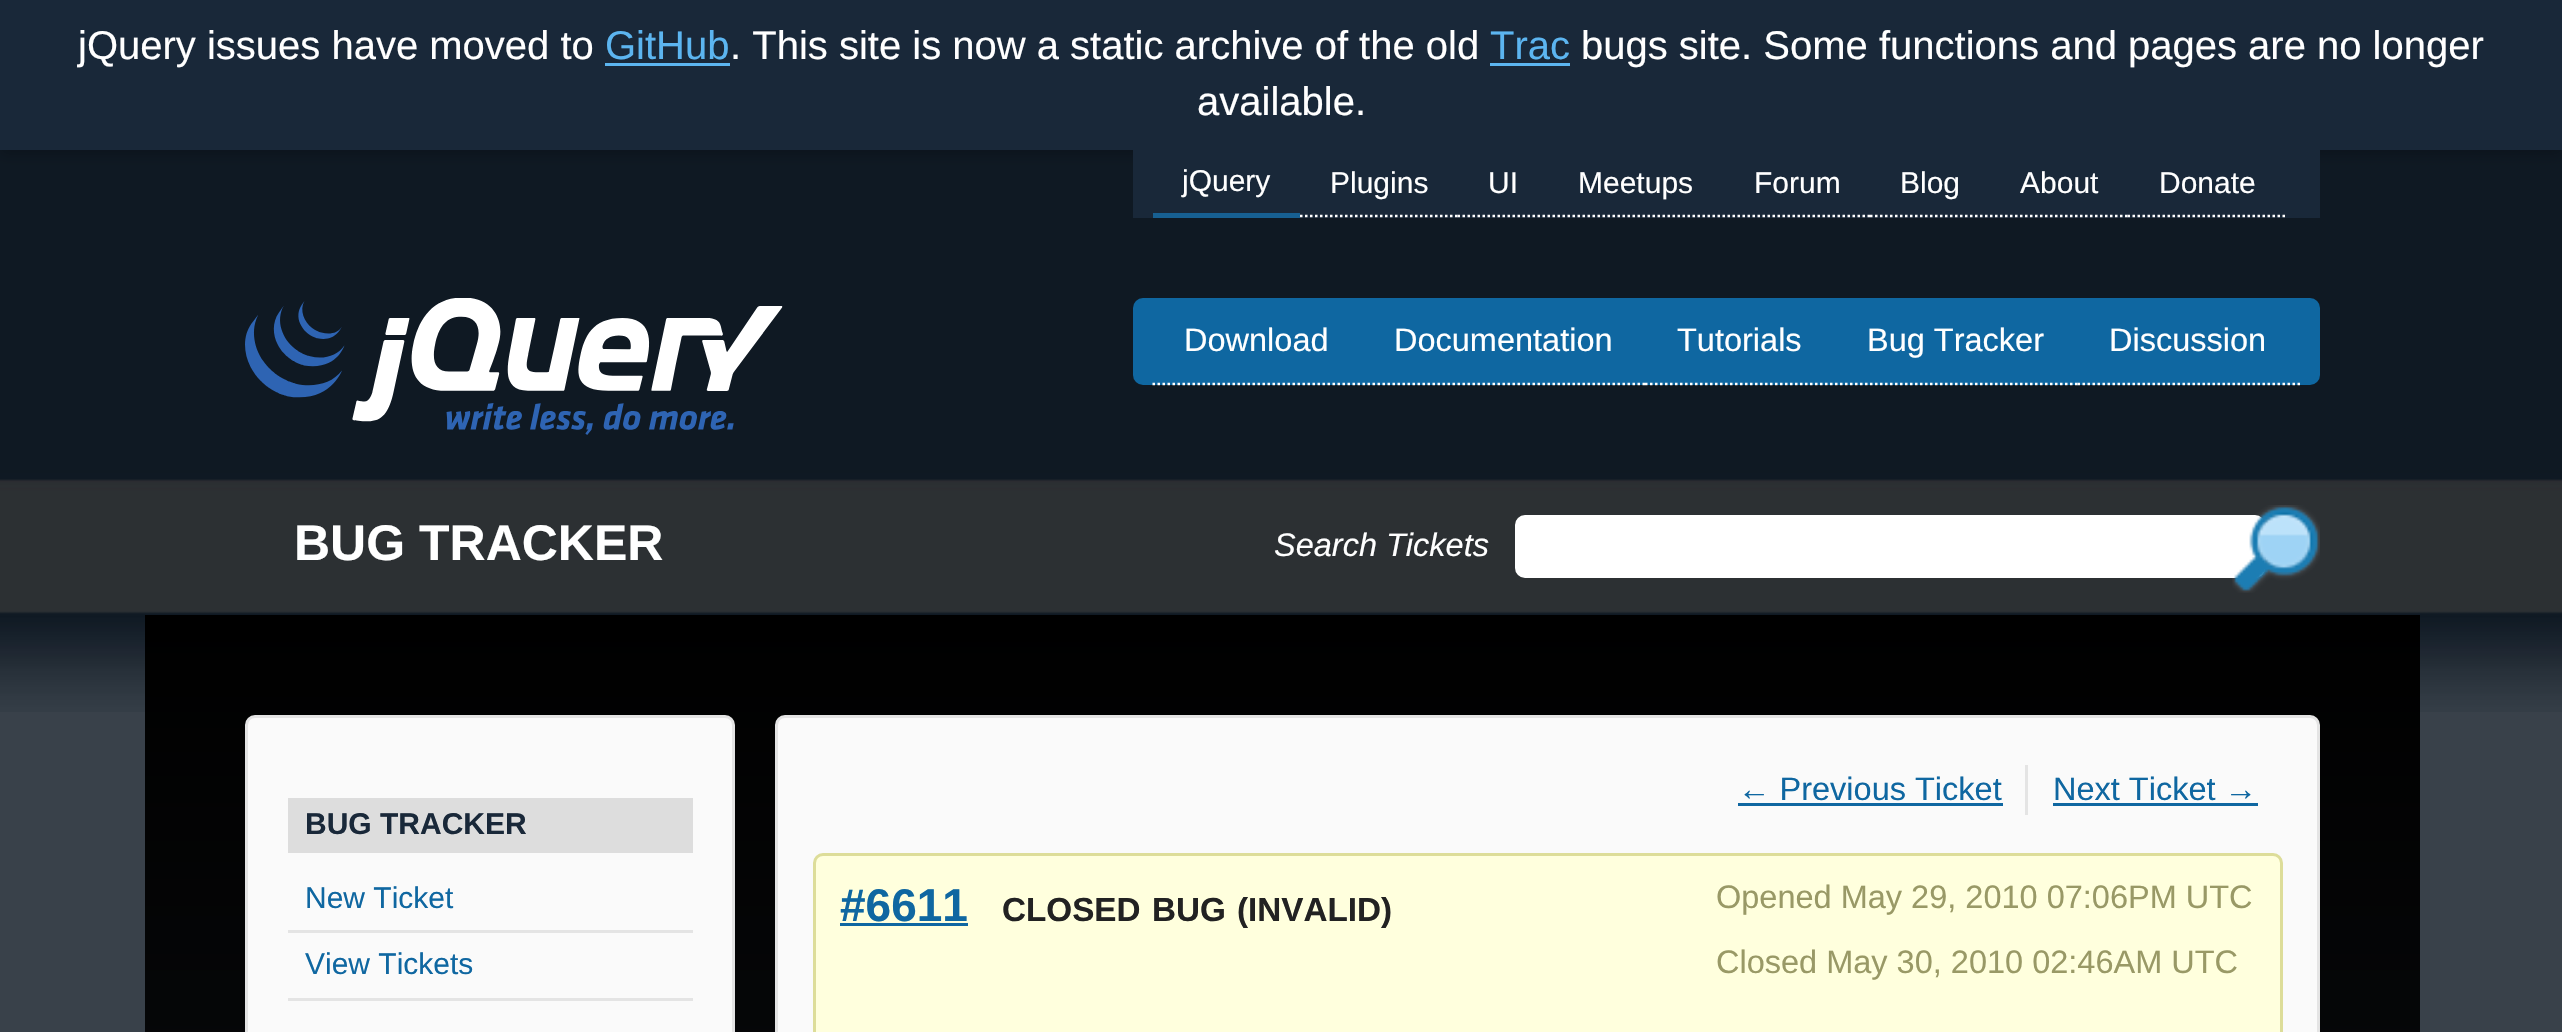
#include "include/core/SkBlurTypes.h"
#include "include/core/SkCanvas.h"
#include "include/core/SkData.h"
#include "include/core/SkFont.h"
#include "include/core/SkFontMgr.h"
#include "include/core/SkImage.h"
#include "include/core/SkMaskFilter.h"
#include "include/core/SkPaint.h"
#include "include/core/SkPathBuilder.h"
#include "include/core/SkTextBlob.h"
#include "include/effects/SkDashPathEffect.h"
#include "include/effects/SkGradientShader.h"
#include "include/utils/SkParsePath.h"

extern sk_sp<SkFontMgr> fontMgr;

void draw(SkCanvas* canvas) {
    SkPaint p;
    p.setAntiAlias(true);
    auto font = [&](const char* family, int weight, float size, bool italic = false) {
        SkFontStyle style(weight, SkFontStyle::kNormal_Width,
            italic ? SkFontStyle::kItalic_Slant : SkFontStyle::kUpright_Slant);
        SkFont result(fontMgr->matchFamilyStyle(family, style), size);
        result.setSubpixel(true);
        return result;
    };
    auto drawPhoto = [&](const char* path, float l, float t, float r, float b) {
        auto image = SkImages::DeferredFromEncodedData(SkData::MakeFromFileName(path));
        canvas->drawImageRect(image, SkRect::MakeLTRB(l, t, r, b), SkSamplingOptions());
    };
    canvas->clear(0xFF39414A);
    drawPhoto("media/1.png", 0, 150, 2562, 712);
    p.setColor(0x33000000);
    p.setMaskFilter(SkMaskFilter::MakeBlur(kNormal_SkBlurStyle, 6));
    canvas->drawRect(SkRect::MakeLTRB(0, 5, 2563, 155), p);
    p.setMaskFilter(nullptr);
    p.setColor(0xFF192839);
    canvas->drawRect(SkRect::MakeLTRB(0, 0, 2562, 150), p);
    auto font1 = font("Liberation Sans", 400, 40);
    p.setColor(0xFFFFFFFF);
    canvas->drawString("jQuery issues have moved to", 78, 59, font1, p);
    p.setColor(0xFF5CB5F0);
    canvas->drawString("GitHub", 605, 59, font1, p);
    canvas->drawRect(SkRect::MakeLTRB(605, 63, 730, 66), p);
    p.setColor(0xFFFFFFFF);
    canvas->drawString(". This site is now a static archive of the old", 730, 59, font1, p);
    p.setColor(0xFF5CB5F0);
    canvas->drawString("Trac", 1490, 59, font1, p);
    canvas->drawRect(SkRect::MakeLTRB(1490, 63, 1570, 66), p);
    p.setColor(0xFFFFFFFF);
    canvas->drawString("bugs site. Some functions and pages are no longer", 1581, 59, font1, p);
    canvas->drawString("available.", 1197, 115, font1, p);
    drawPhoto("media/2.png", 245, 298, 783, 435);
    p.setColor(0xFF192839);
    canvas->drawRect(SkRect::MakeLTRB(1133, 150, 2320, 218), p);
    p.setColor(0xFF176092);
    canvas->drawRect(SkRect::MakeLTRB(1153, 213, 1300, 218), p);
    auto font2 = font("Liberation Sans", 400, 30);
    p.setColor(0xFFFFFFFF);
    canvas->drawString("jQuery", 1182, 191, font2, p);
    p.setStyle(SkPaint::kStroke_Style);
    p.setStrokeWidth(2.5f);
    p.setPathEffect(SkDashPathEffect::Make({{2.5f, 2.5f}}, 0));
    canvas->drawPath(SkPathBuilder().moveTo(1300, 216).lineTo(1457.5f, 216).detach(), p);
    p.setPathEffect(nullptr);
    p.setStyle(SkPaint::kFill_Style);
    canvas->drawString("Plugins", 1330, 193, font2, p);
    p.setStyle(SkPaint::kStroke_Style);
    p.setPathEffect(SkDashPathEffect::Make({{2.5f, 2.5f}}, 0));
    canvas->drawPath(SkPathBuilder().moveTo(1457.5f, 216).lineTo(1547.5f, 216).detach(), p);
    p.setPathEffect(nullptr);
    p.setStyle(SkPaint::kFill_Style);
    canvas->drawString("UI", 1488, 193, font2, p);
    p.setStyle(SkPaint::kStroke_Style);
    p.setPathEffect(SkDashPathEffect::Make({{2.5f, 2.5f}}, 0));
    canvas->drawPath(SkPathBuilder().moveTo(1547.5f, 216).lineTo(1722.5f, 216).detach(), p);
    p.setPathEffect(nullptr);
    p.setStyle(SkPaint::kFill_Style);
    canvas->drawString("Meetups", 1578, 193, font2, p);
    p.setStyle(SkPaint::kStroke_Style);
    p.setPathEffect(SkDashPathEffect::Make({{2.5f, 2.5f}}, 0));
    canvas->drawPath(SkPathBuilder().moveTo(1722.5f, 216).lineTo(1870, 216).detach(), p);
    p.setPathEffect(nullptr);
    p.setStyle(SkPaint::kFill_Style);
    canvas->drawString("Forum", 1754, 193, font2, p);
    p.setStyle(SkPaint::kStroke_Style);
    p.setPathEffect(SkDashPathEffect::Make({{2.5f, 2.5f}}, 0));
    canvas->drawPath(SkPathBuilder().moveTo(1870, 216).lineTo(1990, 216).detach(), p);
    p.setPathEffect(nullptr);
    p.setStyle(SkPaint::kFill_Style);
    canvas->drawString("Blog", 1900, 193, font2, p);
    p.setStyle(SkPaint::kStroke_Style);
    p.setPathEffect(SkDashPathEffect::Make({{2.5f, 2.5f}}, 0));
    canvas->drawPath(SkPathBuilder().moveTo(1990, 216).lineTo(2127.5f, 216).detach(), p);
    p.setPathEffect(nullptr);
    p.setStyle(SkPaint::kFill_Style);
    canvas->drawString("About", 2020, 193, font2, p);
    p.setStyle(SkPaint::kStroke_Style);
    p.setPathEffect(SkDashPathEffect::Make({{2.5f, 2.5f}}, 0));
    canvas->drawPath(SkPathBuilder().moveTo(2127.5f, 216).lineTo(2285, 216).detach(), p);
    p.setPathEffect(nullptr);
    p.setStyle(SkPaint::kFill_Style);
    canvas->drawString("Donate", 2159, 193, font2, p);
    p.setColor(0xFF0F67A1);
    canvas->drawRoundRect(SkRect::MakeLTRB(1133, 298, 2320, 385), 10, 10, p);
    p.setStyle(SkPaint::kStroke_Style);
    p.setColor(0xFFFFFFFF);
    p.setPathEffect(SkDashPathEffect::Make({{2.5f, 2.5f}}, 0));
    canvas->drawPath(SkPathBuilder().moveTo(1152.5f, 384).lineTo(1362.5f, 384).detach(), p);
    p.setPathEffect(nullptr);
    auto font3 = font("Liberation Sans", 400, 32.5f);
    p.setStyle(SkPaint::kFill_Style);
    canvas->drawString("Download", 1184, 351, font3, p);
    p.setStyle(SkPaint::kStroke_Style);
    p.setPathEffect(SkDashPathEffect::Make({{2.5f, 2.5f}}, 0));
    canvas->drawPath(SkPathBuilder().moveTo(1362.5f, 384).lineTo(1645, 384).detach(), p);
    p.setPathEffect(nullptr);
    p.setStyle(SkPaint::kFill_Style);
    canvas->drawString("Documentation", 1394, 351, font3, p);
    p.setStyle(SkPaint::kStroke_Style);
    p.setPathEffect(SkDashPathEffect::Make({{2.5f, 2.5f}}, 0));
    canvas->drawPath(SkPathBuilder().moveTo(1645, 384).lineTo(1835, 384).detach(), p);
    p.setPathEffect(nullptr);
    p.setStyle(SkPaint::kFill_Style);
    canvas->drawString("Tutorials", 1677, 351, font3, p);
    p.setStyle(SkPaint::kStroke_Style);
    p.setPathEffect(SkDashPathEffect::Make({{2.5f, 2.5f}}, 0));
    canvas->drawPath(SkPathBuilder().moveTo(1835, 384).lineTo(2077.5f, 384).detach(), p);
    p.setPathEffect(nullptr);
    p.setStyle(SkPaint::kFill_Style);
    canvas->drawString("Bug Tracker", 1867, 351, font3, p);
    p.setStyle(SkPaint::kStroke_Style);
    p.setPathEffect(SkDashPathEffect::Make({{2.5f, 2.5f}}, 0));
    canvas->drawPath(SkPathBuilder().moveTo(2077.5f, 384).lineTo(2300, 384).detach(), p);
    p.setPathEffect(nullptr);
    p.setStyle(SkPaint::kFill_Style);
    canvas->drawString("Discussion", 2109, 351, font3, p);
    auto font4 = font("Liberation Sans", 700, 50);
    canvas->drawString("BUG TRACKER", 294, 560, font4, p);
    auto font5 = font("Liberation Sans", 400, 32.5f, true);
    canvas->drawString("Search Tickets", 1274, 556, font5, p);
    canvas->drawRoundRect(SkRect::MakeLTRB(1516.5f, 516.5f, 2263.5f, 576.5f), 8.5f, 8.5f, p);
    p.setStyle(SkPaint::kStroke_Style);
    p.setStrokeWidth(3);
    canvas->drawRoundRect(SkRect::MakeLTRB(1516.5f, 516.5f, 2263.5f, 576.5f), 8.5f, 8.5f, p);
    drawPhoto("media/3.png", 2232, 505, 2320, 593);
    p.setStyle(SkPaint::kFill_Style);
    {
        const SkColor colors[] = {0xFF000000, 0xFF181C21};
        const float stops[] = {0, 1};
        const SkPoint ends[] = {{1283, 615}, {1283, 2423}};
        p.setShader(SkGradientShader::MakeLinear(ends, colors, stops, 2, SkTileMode::kClamp));
        p.setAlpha(255);
    }
    canvas->drawRect(SkRect::MakeLTRB(145, 615, 2420, 1032), p);
    p.setShader(nullptr);
    p.setColor(0xFFFAFAFA);
    canvas->drawRoundRect(SkRect::MakeLTRB(246.5f, 716.5f, 733.5f, 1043.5f), 8.5f, 8.5f, p);
    p.setStyle(SkPaint::kStroke_Style);
    p.setColor(0xFFE4E4E4);
    canvas->drawRoundRect(SkRect::MakeLTRB(246.5f, 716.5f, 733.5f, 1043.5f), 8.5f, 8.5f, p);
    p.setStyle(SkPaint::kFill_Style);
    p.setColor(0xFFDDDDDD);
    canvas->drawRect(SkRect::MakeLTRB(288, 798, 693, 853), p);
    auto font6 = font("Liberation Sans", 700, 30);
    p.setColor(0xFF192839);
    canvas->drawString("BUG TRACKER", 305, 834, font6, p);
    p.setColor(0xFFE4E4E4);
    canvas->drawRect(SkRect::MakeLTRB(288, 930, 693, 933), p);
    p.setColor(0xFF0F67A1);
    canvas->drawString("New Ticket", 305, 908, font2, p);
    p.setColor(0xFFE4E4E4);
    canvas->drawRect(SkRect::MakeLTRB(288, 998, 693, 1001), p);
    p.setColor(0xFF0F67A1);
    canvas->drawString("View Tickets", 305, 974, font2, p);
    p.setColor(0xFFFAFAFA);
    canvas->drawRoundRect(SkRect::MakeLTRB(776.5f, 716.5f, 2318.5f, 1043.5f), 8.5f, 8.5f, p);
    p.setStyle(SkPaint::kStroke_Style);
    p.setColor(0xFFE4E4E4);
    canvas->drawRoundRect(SkRect::MakeLTRB(776.5f, 716.5f, 2318.5f, 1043.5f), 8.5f, 8.5f, p);
    p.setStyle(SkPaint::kFill_Style);
    canvas->drawRect(SkRect::MakeLTRB(2025, 765, 2028, 815), p);
    p.setColor(0xFF0F67A1);
    canvas->drawString("← Previous Ticket", 1738, 800, font3, p);
    canvas->drawRect(SkRect::MakeLTRB(1738, 803, 2003, 806), p);
    canvas->drawString("Next Ticket →", 2053, 800, font3, p);
    canvas->drawRect(SkRect::MakeLTRB(2053, 803, 2258, 806), p);
    p.setColor(0xFFFFFFDD);
    canvas->drawRoundRect(SkRect::MakeLTRB(814.5f, 854.5f, 2281.5f, 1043.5f), 8.5f, 8.5f, p);
    p.setStyle(SkPaint::kStroke_Style);
    p.setColor(0xFFDDDD99);
    canvas->drawRoundRect(SkRect::MakeLTRB(814.5f, 854.5f, 2281.5f, 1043.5f), 8.5f, 8.5f, p);
    auto font7 = font("Liberation Sans", 700, 46);
    p.setStyle(SkPaint::kFill_Style);
    p.setColor(0xFF0F67A1);
    canvas->drawString("#6611", 840, 921, font7, p);
    canvas->drawRect(SkRect::MakeLTRB(840, 923, 968, 926), p);
    auto font8 = font("Liberation Sans", 700, 33.25f);
    p.setColor(0xFF222222);
    {
        const struct { const char* s; float x, y; } items[] = {
            {"CLOSED", 1002, 921},
            {"BUG", 1152, 921},
            {"(INVALID)", 1237, 921},
        };
        for (auto [s, x, y] : items) {
            canvas->drawString(s, x, y, font8, p);
        }
    }
    p.setColor(0xFF999966);
    canvas->drawString("Opened May 29, 2010 07:06PM UTC", 1716, 908, font3, p);
    canvas->drawString("Closed May 30, 2010 02:46AM UTC", 1716, 973, font3, p);
}
